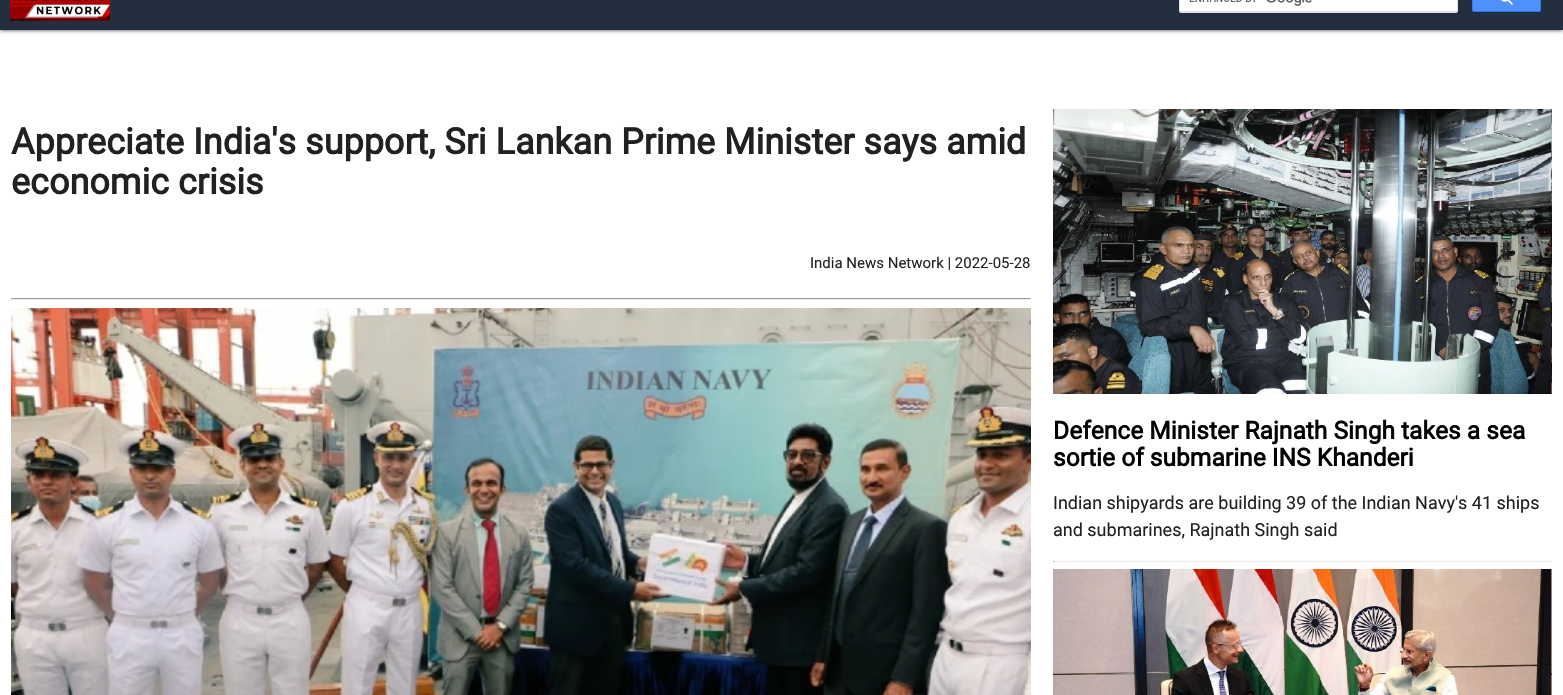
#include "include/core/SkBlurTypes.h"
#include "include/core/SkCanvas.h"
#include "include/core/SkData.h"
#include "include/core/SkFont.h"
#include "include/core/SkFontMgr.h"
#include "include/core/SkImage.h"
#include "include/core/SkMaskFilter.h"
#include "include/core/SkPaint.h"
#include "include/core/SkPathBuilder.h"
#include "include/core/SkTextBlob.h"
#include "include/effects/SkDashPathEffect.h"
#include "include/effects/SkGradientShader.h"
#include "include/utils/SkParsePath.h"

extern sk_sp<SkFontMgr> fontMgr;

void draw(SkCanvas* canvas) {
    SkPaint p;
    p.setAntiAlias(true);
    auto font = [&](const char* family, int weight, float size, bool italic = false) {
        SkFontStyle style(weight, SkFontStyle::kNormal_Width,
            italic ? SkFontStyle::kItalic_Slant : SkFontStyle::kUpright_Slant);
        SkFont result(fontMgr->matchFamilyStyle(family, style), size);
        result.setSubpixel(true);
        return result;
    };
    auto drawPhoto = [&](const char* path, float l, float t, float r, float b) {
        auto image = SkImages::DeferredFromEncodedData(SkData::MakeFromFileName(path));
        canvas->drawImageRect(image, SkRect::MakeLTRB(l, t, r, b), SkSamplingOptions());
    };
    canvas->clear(0xFFFFFFFF);
    p.setColor(0x33000000);
    p.setMaskFilter(SkMaskFilter::MakeBlur(kNormal_SkBlurStyle, 2.5f));
    canvas->drawRect(SkRect::MakeLTRB(0, -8, 1563, 31), p);
    p.setMaskFilter(nullptr);
    p.setColor(0x1F000000);
    p.setMaskFilter(SkMaskFilter::MakeBlur(kNormal_SkBlurStyle, 0.5f));
    canvas->drawRect(SkRect::MakeLTRB(2, -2, 1561, 31), p);
    p.setMaskFilter(nullptr);
    p.setColor(0x24000000);
    p.setMaskFilter(SkMaskFilter::MakeBlur(kNormal_SkBlurStyle, 1));
    canvas->drawRect(SkRect::MakeLTRB(0, -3, 1563, 32), p);
    p.setMaskFilter(nullptr);
    p.setColor(0xFF232F3E);
    canvas->drawRect(SkRect::MakeLTRB(0, 0, 1563, 30), p);
    drawPhoto("media/1.png", 10, 0, 110, 21);
    p.setColor(0xFF1F2937);
    canvas->drawRect(SkRect::MakeLTRB(1179, 12, 1541, 13), p);
    p.setColor(0xFFFFFFFF);
    canvas->drawRoundRect(SkRect::MakeLTRB(1179.5f, -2.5f, 1457.5f, 12.5f), 1.5f, 1.5f, p);
    p.setStyle(SkPaint::kStroke_Style);
    p.setStrokeWidth(1);
    p.setColor(0xFFDFE1E5);
    canvas->drawRoundRect(SkRect::MakeLTRB(1179.5f, -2.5f, 1457.5f, 12.5f), 1.5f, 1.5f, p);
    p.setStyle(SkPaint::kFill_Style);
    p.setColor(0x1F000000);
    canvas->drawRect(SkRect::MakeLTRB(1180, 11, 1457, 12), p);
    drawPhoto("media/2.png", 1189, 0, 1312, 6);
    p.setColor(0xFF4D90FE);
    canvas->drawRoundRect(SkRect::MakeLTRB(1472.5f, -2.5f, 1540.5f, 11.5f), 1.5f, 1.5f, p);
    p.setStyle(SkPaint::kStroke_Style);
    p.setColor(0xFF3079ED);
    canvas->drawRoundRect(SkRect::MakeLTRB(1472.5f, -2.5f, 1540.5f, 11.5f), 1.5f, 1.5f, p);
    drawPhoto("media/3.png", 1501, 0, 1513, 5);
    auto font1 = font("Roboto", 700, 36);
    p.setStyle(SkPaint::kFill_Style);
    p.setColor(0xFF212121);
    canvas->drawString("Appreciate India's support, Sri Lankan Prime Minister says amid", 11, 154, font1, p);
    canvas->drawString("economic crisis", 11, 194, font1, p);
    auto font2 = font("Roboto", 400, 15);
    canvas->drawString("India News Network | 2022-05-28", 810, 268, font2, p);
    p.setColor(0xFF999999);
    canvas->drawPath(SkPathBuilder().moveTo(11, 298).lineTo(1031, 298).lineTo(1030, 299).lineTo(12, 299).close().detach(), p);
    p.setColor(0xFFEEEEEE);
    canvas->drawPath(SkPathBuilder().moveTo(1031, 298).lineTo(1031, 300).lineTo(1030, 299).close().detach(), p);
    canvas->drawRect(SkRect::MakeLTRB(11, 299, 1031, 300), p);
    p.setColor(0xFF9F9F9F);
    canvas->drawPath(SkPathBuilder().moveTo(11, 300).lineTo(11, 298).lineTo(12, 299).close().detach(), p);
    drawPhoto("media/4.png", 11, 308, 1031, 695);
    drawPhoto("media/5.png", 1053, 109, 1552, 394);
    auto font3 = font("Roboto", 700, 24.6f);
    p.setColor(0xFF000000);
    canvas->drawString("Defence Minister Rajnath Singh takes a sea", 1053, 439, font3, p);
    canvas->drawString("sortie of submarine INS Khanderi", 1053, 466, font3, p);
    auto font4 = font("Roboto", 400, 18);
    p.setColor(0xFF212121);
    canvas->drawString("Indian shipyards are building 39 of the Indian Navy's 41 ships", 1053, 509, font4, p);
    canvas->drawString("and submarines, Rajnath Singh said", 1053, 536, font4, p);
    p.setColor(0xFFEEEEEE);
    canvas->drawRect(SkRect::MakeLTRB(1053, 561, 1552, 562), p);
    p.setColor(0xFF9F9F9F);
    canvas->drawRect(SkRect::MakeLTRB(1053, 561, 1054, 562), p);
    drawPhoto("media/6.png", 1053, 569, 1552, 695);
}
